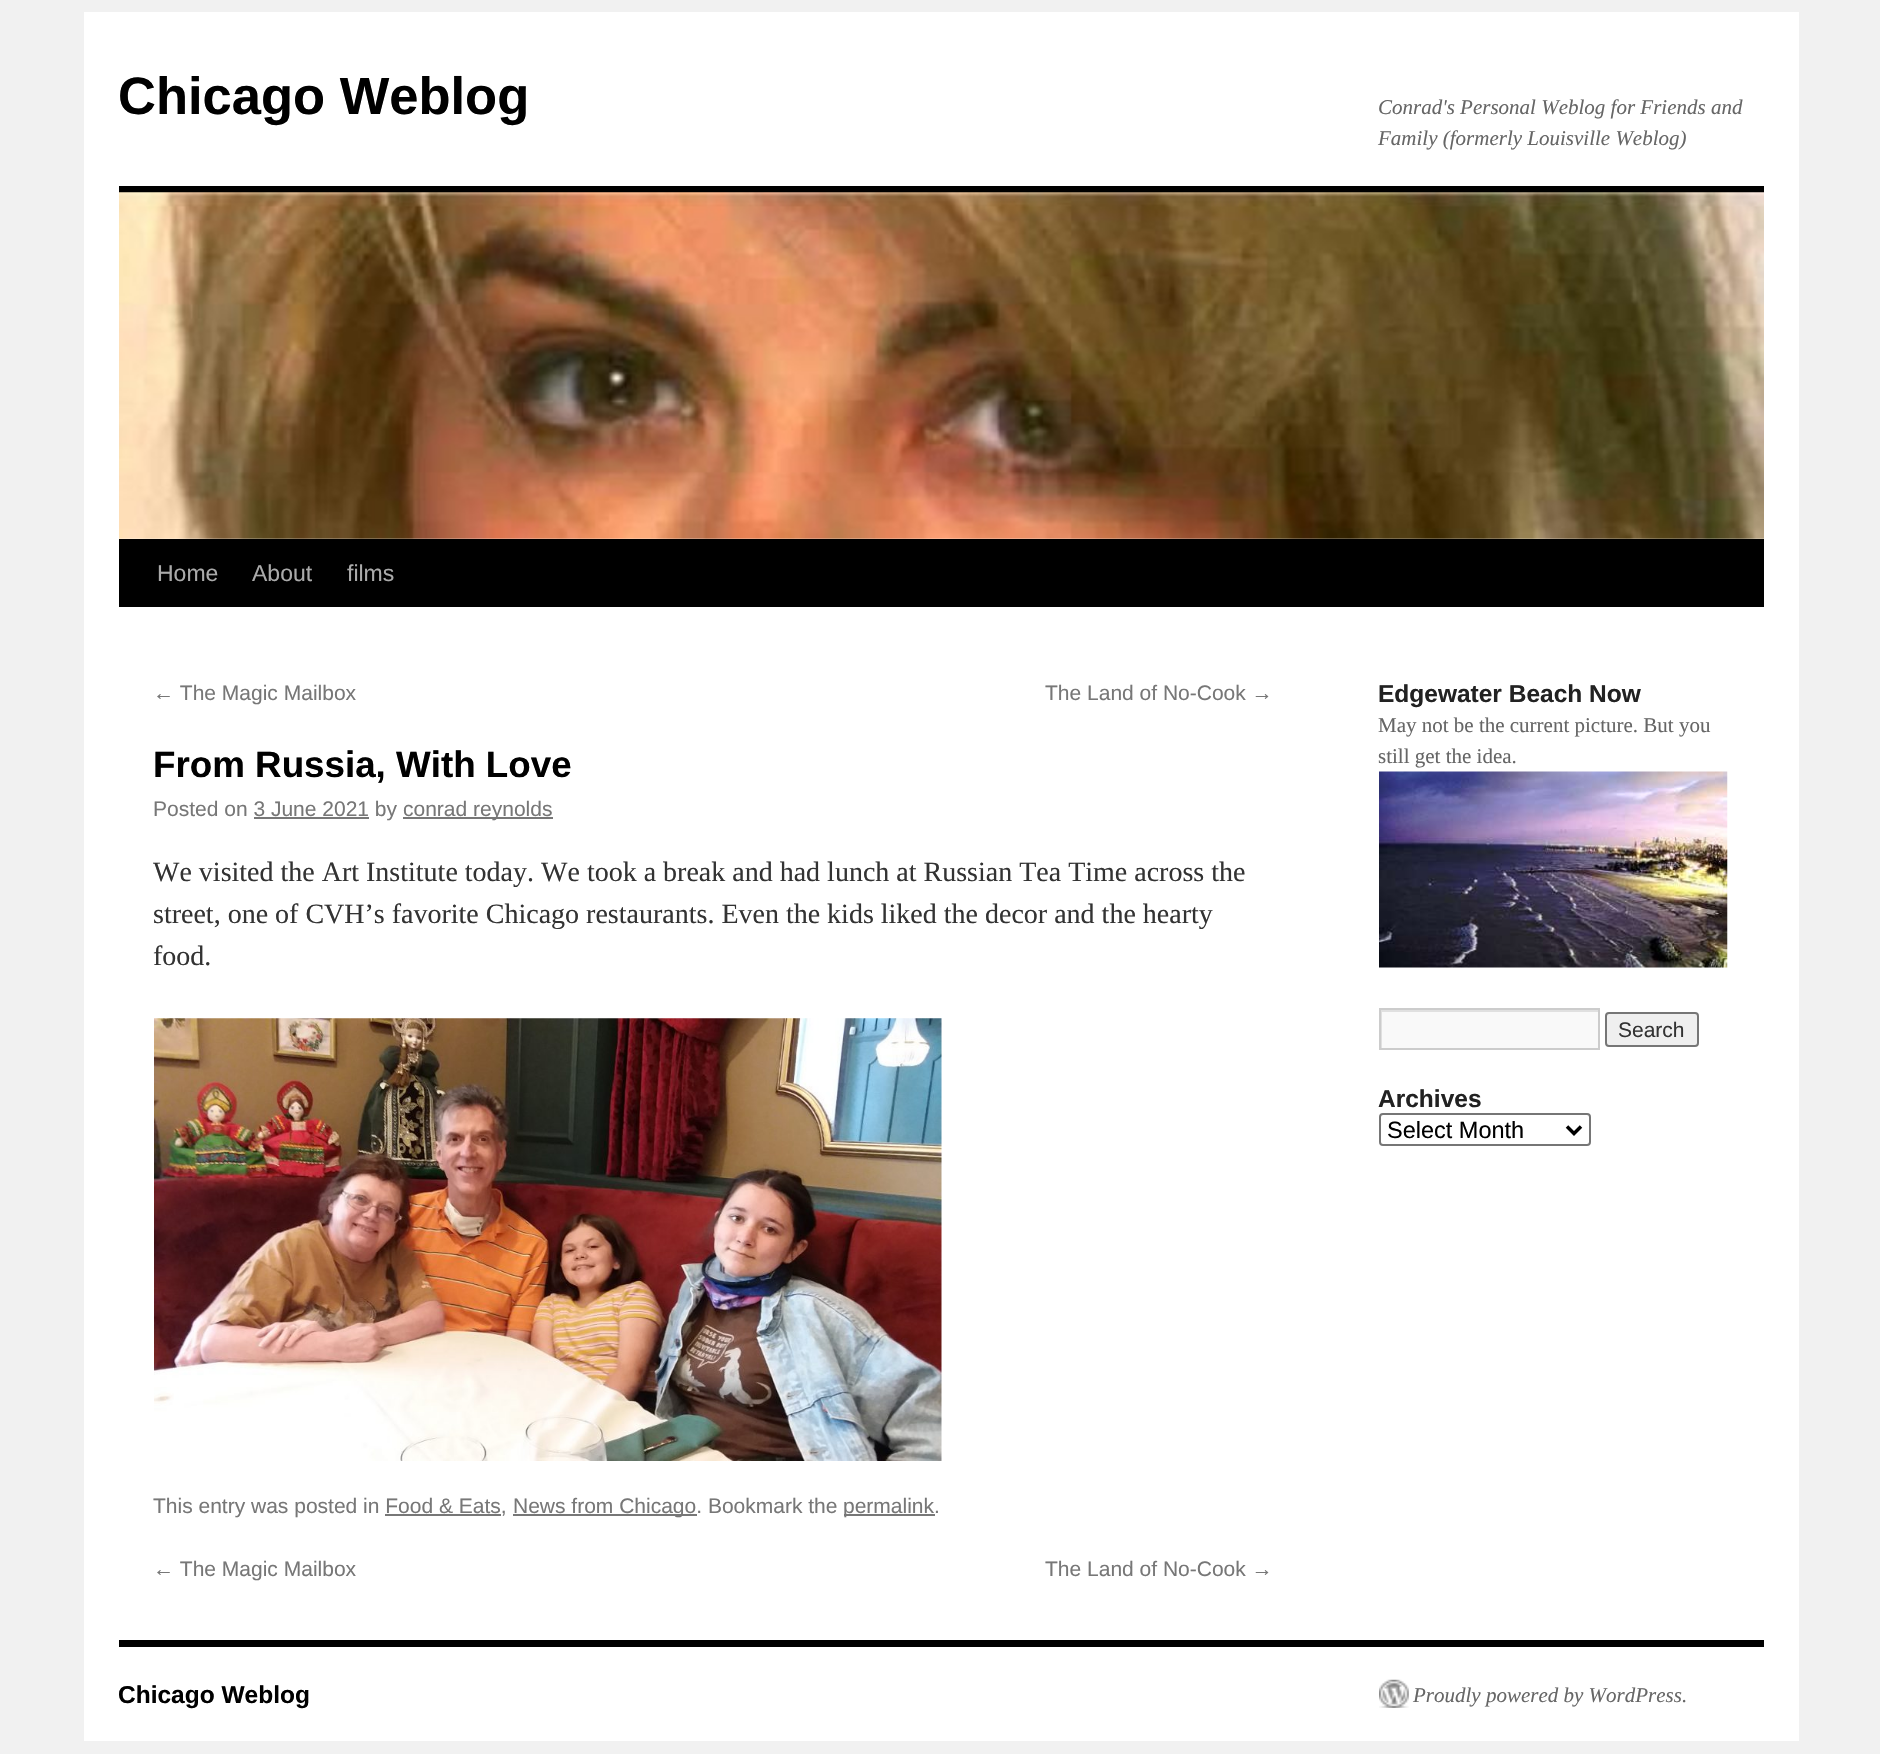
#include "include/core/SkBlurTypes.h"
#include "include/core/SkCanvas.h"
#include "include/core/SkData.h"
#include "include/core/SkFont.h"
#include "include/core/SkFontMgr.h"
#include "include/core/SkImage.h"
#include "include/core/SkMaskFilter.h"
#include "include/core/SkPaint.h"
#include "include/core/SkPathBuilder.h"
#include "include/core/SkTextBlob.h"
#include "include/effects/SkDashPathEffect.h"
#include "include/effects/SkGradientShader.h"
#include "include/utils/SkParsePath.h"

extern sk_sp<SkFontMgr> fontMgr;

void draw(SkCanvas* canvas) {
    SkPaint p;
    p.setAntiAlias(true);
    auto font = [&](const char* family, int weight, float size, bool italic = false) {
        SkFontStyle style(weight, SkFontStyle::kNormal_Width,
            italic ? SkFontStyle::kItalic_Slant : SkFontStyle::kUpright_Slant);
        SkFont result(fontMgr->matchFamilyStyle(family, style), size);
        result.setSubpixel(true);
        return result;
    };
    auto drawPhoto = [&](const char* path, float l, float t, float r, float b) {
        auto image = SkImages::DeferredFromEncodedData(SkData::MakeFromFileName(path));
        canvas->drawImageRect(image, SkRect::MakeLTRB(l, t, r, b), SkSamplingOptions());
    };
    canvas->clear(0xFFF1F1F1);
    p.setColor(0xFFFFFFFF);
    canvas->drawRect(SkRect::MakeLTRB(84, 12, 1799, 1741), p);
    auto font1 = font("Liberation Sans", 700, 52.5f);
    p.setColor(0xFF000000);
    canvas->drawString("Chicago Weblog", 118, 114, font1, p);
    auto font2 = font("Liberation Serif", 400, 21, true);
    p.setColor(0xFF666666);
    canvas->drawString("Conrad's Personal Weblog for Friends and", 1378, 114, font2, p);
    canvas->drawString("Family (formerly Louisville Weblog)", 1378, 145, font2, p);
    p.setColor(0xFF000000);
    canvas->drawRect(SkRect::MakeLTRB(119, 186, 1764, 193), p);
    canvas->drawRect(SkRect::MakeLTRB(119, 539, 1764, 607), p);
    drawPhoto("media/1.png", 119, 192, 1764, 539);
    auto font3 = font("Liberation Sans", 400, 23);
    p.setColor(0xFFAAAAAA);
    {
        const struct { const char* s; float x, y; } items[] = {
            {"Home", 157, 581},
            {"About", 252, 581},
            {"films", 347, 581},
        };
        for (auto [s, x, y] : items) {
            canvas->drawString(s, x, y, font3, p);
        }
    }
    auto font4 = font("Liberation Sans", 400, 21);
    p.setColor(0xFF777777);
    canvas->drawString("← The Magic Mailbox", 153, 700, font4, p);
    canvas->drawString("The Land of No-Cook →", 1045, 700, font4, p);
    auto font5 = font("Liberation Sans", 700, 36.75f);
    p.setColor(0xFF000000);
    canvas->drawString("From Russia, With Love", 153, 777, font5, p);
    p.setColor(0xFF777777);
    canvas->drawString("Posted on 3 June 2021 by", 153, 816, font4, p);
    canvas->drawRect(SkRect::MakeLTRB(403, 817, 553, 819), p);
    canvas->drawString("conrad reynolds", 403, 816, font4, p);
    canvas->drawRect(SkRect::MakeLTRB(254, 817, 369, 819), p);
    auto font6 = font("Liberation Serif", 400, 28);
    p.setColor(0xFF333333);
    {
        const struct { const char* s; float x, y; } items[] = {
            {"We visited the Art Institute today. We took a break and had lunch at Russian Tea Time across the", 153, 881},
            {"street, one of CVH’s favorite Chicago restaurants. Even the kids liked the decor and the hearty", 153, 923},
            {"food.", 153, 965},
        };
        for (auto [s, x, y] : items) {
            canvas->drawString(s, x, y, font6, p);
        }
    }
    drawPhoto("media/2.png", 154, 1018, 942, 1461);
    p.setColor(0xFF777777);
    canvas->drawString("This entry was posted in Food & Eats,", 153, 1513, font4, p);
    canvas->drawRect(SkRect::MakeLTRB(513, 1514, 697, 1516), p);
    canvas->drawString("News from Chicago. Bookmark the", 513, 1513, font4, p);
    canvas->drawRect(SkRect::MakeLTRB(844, 1514, 935, 1516), p);
    canvas->drawString("permalink.", 843, 1513, font4, p);
    canvas->drawRect(SkRect::MakeLTRB(385, 1514, 501, 1516), p);
    canvas->drawString("← The Magic Mailbox", 153, 1576, font4, p);
    canvas->drawString("The Land of No-Cook →", 1045, 1576, font4, p);
    auto font7 = font("Liberation Sans", 700, 24.5f);
    p.setColor(0xFF222222);
    canvas->drawString("Edgewater Beach Now", 1378, 702, font7, p);
    auto font8 = font("Liberation Serif", 400, 21);
    p.setColor(0xFF666666);
    canvas->drawString("May not be the current picture. But you", 1378, 732, font8, p);
    canvas->drawString("still get the idea.", 1378, 763, font8, p);
    drawPhoto("media/3.png", 1379, 771, 1728, 968);
    p.setColor(0xFFF9F9F9);
    canvas->drawRect(SkRect::MakeLTRB(1382, 1012, 1598, 1048), p);
    canvas->save();
    canvas->clipRect(SkRect::MakeLTRB(1381, 1010, 1598, 1048));
    p.setColor(0xFFE0E0E0);
    canvas->drawPath(SkPathBuilder(SkPathFillType::kEvenOdd).moveTo(1208, 836).lineTo(1771, 836).lineTo(1771, 1222).lineTo(1208, 1222).close().moveTo(1382, 1012).lineTo(1600, 1012).lineTo(1600, 1050).lineTo(1382, 1050).close().detach(), p);
    canvas->restore();
    p.setStyle(SkPaint::kStroke_Style);
    p.setStrokeWidth(2);
    p.setColor(0xFFCCCCCC);
    canvas->drawRect(SkRect::MakeLTRB(1380, 1009, 1599, 1049), p);
    p.setStyle(SkPaint::kFill_Style);
    p.setColor(0xFFEFEFEF);
    canvas->drawRoundRect(SkRect::MakeLTRB(1606, 1013, 1698, 1046), 3, 3, p);
    p.setStyle(SkPaint::kStroke_Style);
    p.setColor(0xFF767676);
    canvas->drawRoundRect(SkRect::MakeLTRB(1606, 1013, 1698, 1046), 3, 3, p);
    p.setStyle(SkPaint::kFill_Style);
    p.setColor(0xFF333333);
    canvas->drawString("Search", 1618, 1037, font4, p);
    p.setColor(0xFF222222);
    canvas->drawString("Archives", 1378, 1107, font7, p);
    p.setStyle(SkPaint::kStroke_Style);
    p.setColor(0xFF767676);
    canvas->drawRoundRect(SkRect::MakeLTRB(1380, 1114, 1590, 1145), 3, 3, p);
    p.setStrokeWidth(3.5f);
    p.setColor(0xFF000000);
    canvas->drawPath(SkPathBuilder().moveTo(1567, 1126.5f).lineTo(1574, 1133.5f).lineTo(1581, 1126.5f).detach(), p);
    auto font9 = font("Liberation Sans", 400, 23.5f);
    p.setStyle(SkPaint::kFill_Style);
    canvas->drawString("Select Month", 1387, 1138, font9, p);
    canvas->drawRect(SkRect::MakeLTRB(119, 1640, 1764, 1647), p);
    canvas->drawString("Chicago Weblog", 118, 1703, font7, p);
    drawPhoto("media/4.png", 1379, 1679, 1409, 1708);
    p.setColor(0xFF666666);
    canvas->drawString("Proudly powered by WordPress.", 1413, 1702, font2, p);
}
